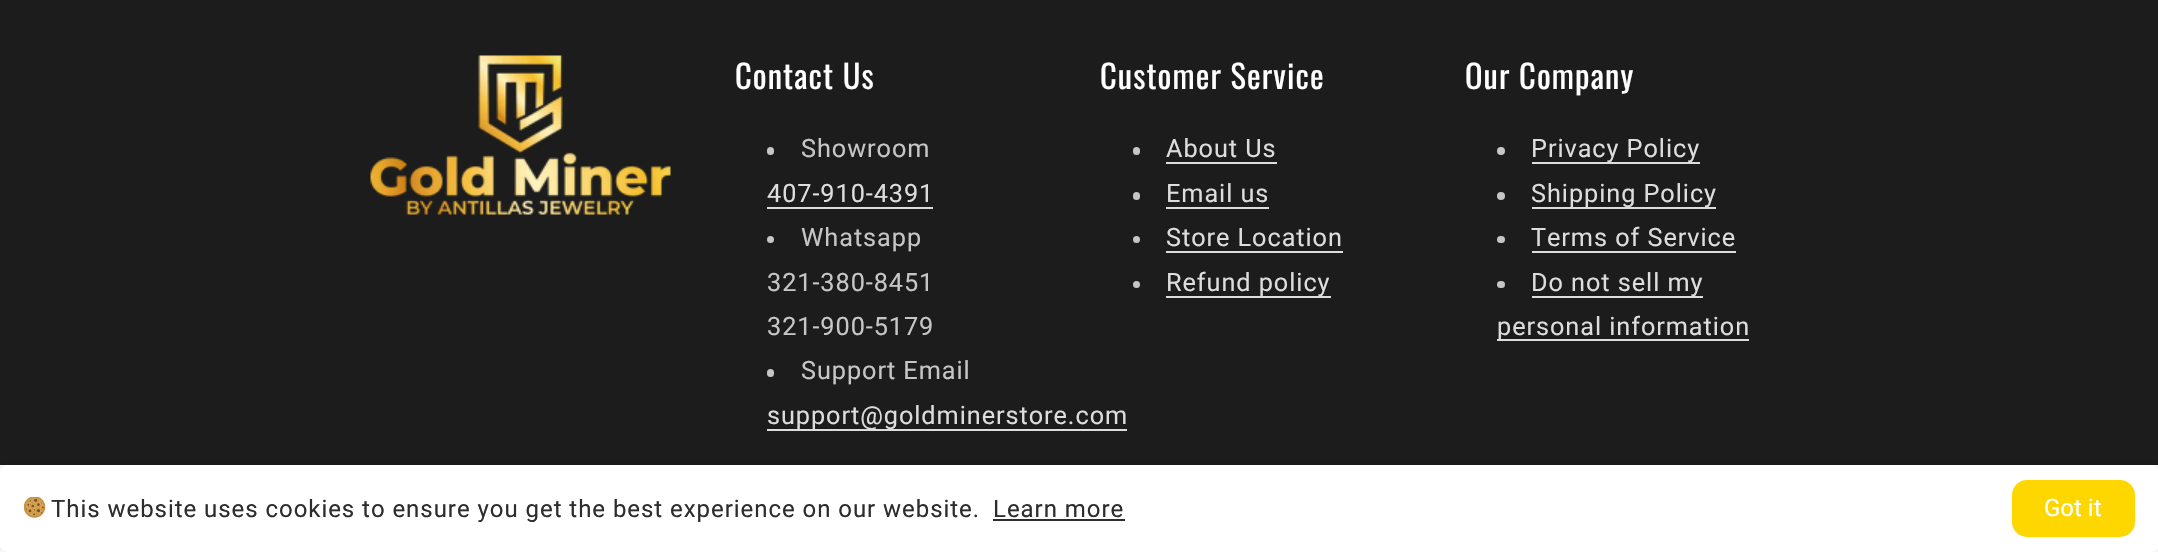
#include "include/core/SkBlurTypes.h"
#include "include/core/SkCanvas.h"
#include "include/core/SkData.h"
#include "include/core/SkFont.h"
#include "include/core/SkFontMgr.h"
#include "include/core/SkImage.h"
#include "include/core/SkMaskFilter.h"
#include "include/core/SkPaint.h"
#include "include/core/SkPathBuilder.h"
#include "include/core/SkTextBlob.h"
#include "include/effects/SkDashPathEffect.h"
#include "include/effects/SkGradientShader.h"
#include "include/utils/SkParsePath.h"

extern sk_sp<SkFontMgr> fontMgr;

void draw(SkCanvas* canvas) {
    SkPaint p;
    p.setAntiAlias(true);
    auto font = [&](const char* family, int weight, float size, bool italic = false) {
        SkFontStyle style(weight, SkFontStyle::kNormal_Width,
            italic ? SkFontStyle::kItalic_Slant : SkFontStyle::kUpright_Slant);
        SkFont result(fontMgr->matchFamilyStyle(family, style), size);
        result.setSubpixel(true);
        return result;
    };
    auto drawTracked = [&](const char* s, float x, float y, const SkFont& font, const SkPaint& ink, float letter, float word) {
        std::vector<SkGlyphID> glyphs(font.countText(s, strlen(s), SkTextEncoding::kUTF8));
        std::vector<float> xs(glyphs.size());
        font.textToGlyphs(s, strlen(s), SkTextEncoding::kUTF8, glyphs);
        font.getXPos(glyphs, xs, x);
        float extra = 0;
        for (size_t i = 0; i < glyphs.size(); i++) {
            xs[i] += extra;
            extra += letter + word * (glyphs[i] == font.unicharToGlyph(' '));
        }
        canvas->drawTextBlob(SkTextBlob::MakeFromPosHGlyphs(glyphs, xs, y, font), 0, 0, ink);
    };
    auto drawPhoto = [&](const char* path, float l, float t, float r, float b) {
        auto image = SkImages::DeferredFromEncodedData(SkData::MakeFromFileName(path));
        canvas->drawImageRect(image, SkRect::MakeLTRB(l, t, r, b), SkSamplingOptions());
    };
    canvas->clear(0xFF1C1C1C);
    drawPhoto("media/1.png", 370, 55, 671, 215);
    auto font1 = font("Oswald", 400, 32.5f);
    p.setColor(0xFFFFFFFF);
    drawTracked("Contact Us", 735, 89, font1, p, 1.1f, 0);
    p.setColor(0xFFC6C6C6);
    canvas->drawRoundRect(SkRect::MakeLTRB(767, 147, 774, 155), 3.5f, 3.5f, p);
    auto font2 = font("Roboto", 400, 25.25f);
    drawTracked("Showroom", 801, 157, font2, p, 0.95f, 0);
    p.setColor(0xFFDDDDDD);
    drawTracked("407-910-4391", 767, 202, font2, p, 0.95f, 0);
    canvas->drawRect(SkRect::MakeLTRB(767, 207, 933, 209), p);
    p.setColor(0xFFC6C6C6);
    canvas->drawCircle(770.5f, 239.5f, 3.5f, p);
    {
        const struct { const char* s; float x, y; } items[] = {
            {"Whatsapp", 801, 246},
            {"321-380-8451", 767, 291},
            {"321-900-5179", 767, 335},
        };
        for (auto [s, x, y] : items) {
            drawTracked(s, x, y, font2, p, 0.95f, 0);
        }
    }
    canvas->drawRoundRect(SkRect::MakeLTRB(767, 369, 774, 377), 3.5f, 3.5f, p);
    drawTracked("Support Email", 801, 379, font2, p, 0.95f, 0);
    p.setColor(0xFFDDDDDD);
    canvas->drawRect(SkRect::MakeLTRB(767, 429, 1127, 431), p);
    drawTracked("support@goldminerstore.com", 767, 424, font2, p, 0.95f, 0);
    p.setColor(0xFFFFFFFF);
    drawTracked("Customer Service", 1100, 89, font1, p, 1.1f, 0);
    p.setColor(0xFFC6C6C6);
    canvas->drawRoundRect(SkRect::MakeLTRB(1133, 147, 1140, 155), 3.5f, 3.5f, p);
    p.setColor(0xFFDDDDDD);
    drawTracked("About Us", 1166, 157, font2, p, 0.95f, 0);
    canvas->drawRect(SkRect::MakeLTRB(1166, 162, 1277, 164), p);
    p.setColor(0xFFC6C6C6);
    canvas->drawRoundRect(SkRect::MakeLTRB(1133, 192, 1140, 200), 3.5f, 3.5f, p);
    p.setColor(0xFFDDDDDD);
    drawTracked("Email us", 1166, 202, font2, p, 0.95f, 0);
    canvas->drawRect(SkRect::MakeLTRB(1166, 207, 1269, 209), p);
    p.setColor(0xFFC6C6C6);
    canvas->drawCircle(1136.5f, 239.5f, 3.5f, p);
    p.setColor(0xFFDDDDDD);
    drawTracked("Store Location", 1166, 246, font2, p, 0.95f, 0);
    canvas->drawRect(SkRect::MakeLTRB(1166, 251, 1343, 253), p);
    p.setColor(0xFFC6C6C6);
    canvas->drawCircle(1136.5f, 284.5f, 3.5f, p);
    p.setColor(0xFFDDDDDD);
    canvas->drawRect(SkRect::MakeLTRB(1166, 296, 1331, 298), p);
    drawTracked("Refund policy", 1166, 291, font2, p, 0.95f, 0);
    p.setColor(0xFFFFFFFF);
    drawTracked("Our Company", 1465, 89, font1, p, 1.1f, 0);
    p.setColor(0xFFC6C6C6);
    canvas->drawCircle(1501, 151, 4, p);
    p.setColor(0xFFDDDDDD);
    canvas->drawRect(SkRect::MakeLTRB(1532, 162, 1700, 164), p);
    drawTracked("Privacy Policy", 1531, 157, font2, p, 0.95f, 0);
    p.setColor(0xFFC6C6C6);
    canvas->drawCircle(1501, 196, 4, p);
    p.setColor(0xFFDDDDDD);
    canvas->drawRect(SkRect::MakeLTRB(1532, 207, 1716, 209), p);
    drawTracked("Shipping Policy", 1531, 202, font2, p, 0.95f, 0);
    p.setColor(0xFFC6C6C6);
    canvas->drawRoundRect(SkRect::MakeLTRB(1497, 236, 1505, 243), 3.5f, 3.5f, p);
    p.setColor(0xFFDDDDDD);
    drawTracked("Terms of Service", 1531, 246, font2, p, 0.95f, 0);
    canvas->drawRect(SkRect::MakeLTRB(1532, 251, 1736, 253), p);
    p.setColor(0xFFC6C6C6);
    canvas->drawRoundRect(SkRect::MakeLTRB(1497, 281, 1505, 288), 3.5f, 3.5f, p);
    p.setColor(0xFFDDDDDD);
    canvas->drawRect(SkRect::MakeLTRB(1532, 296, 1703, 298), p);
    drawTracked("Do not sell my", 1531, 291, font2, p, 0.95f, 0);
    canvas->drawRect(SkRect::MakeLTRB(1497, 339, 1749, 341), p);
    drawTracked("personal information", 1497, 335, font2, p, 0.95f, 0);
    p.setColor(0xFFFFFFFF);
    canvas->drawRect(SkRect::MakeLTRB(0, 465, 2158, 552), p);
    canvas->save();
    canvas->clipPath(SkPathBuilder(SkPathFillType::kEvenOdd).moveTo(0, 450).lineTo(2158, 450).lineTo(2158, 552).lineTo(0, 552).close().moveTo(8, 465).lineTo(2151, 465).cubicTo(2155.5f, 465, 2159, 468.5f, 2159, 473).lineTo(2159, 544).cubicTo(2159, 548.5f, 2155.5f, 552, 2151, 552).lineTo(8, 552).cubicTo(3.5f, 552, 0, 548.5f, 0, 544).lineTo(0, 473).cubicTo(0, 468.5f, 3.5f, 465, 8, 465).close().detach(), true);
    p.setColor(0x1F000000);
    p.setMaskFilter(SkMaskFilter::MakeBlur(kNormal_SkBlurStyle, 4.5f));
    canvas->drawRoundRect(SkRect::MakeLTRB(0, 465, 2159, 552), 8, 8, p);
    p.setMaskFilter(nullptr);
    canvas->restore();
    drawPhoto("media/2.png", 24, 497, 46, 518);
    auto font3 = font("Roboto", 400, 24);
    p.setColor(0xFF2D2D2D);
    drawTracked("This website uses cookies to ensure you get the best experience on our website.", 51, 517, font3, p, 0.95f, 0);
    drawTracked("Learn more", 993, 517, font3, p, 0.95f, 0);
    canvas->drawRect(SkRect::MakeLTRB(993, 519, 1125, 521), p);
    p.setColor(0xFFFFD700);
    canvas->drawRoundRect(SkRect::MakeLTRB(2012, 480, 2135, 537), 15, 15, p);
    p.setColor(0xFFFFFFFF);
    canvas->drawString("Got it", 2044, 516, font3, p);
}
